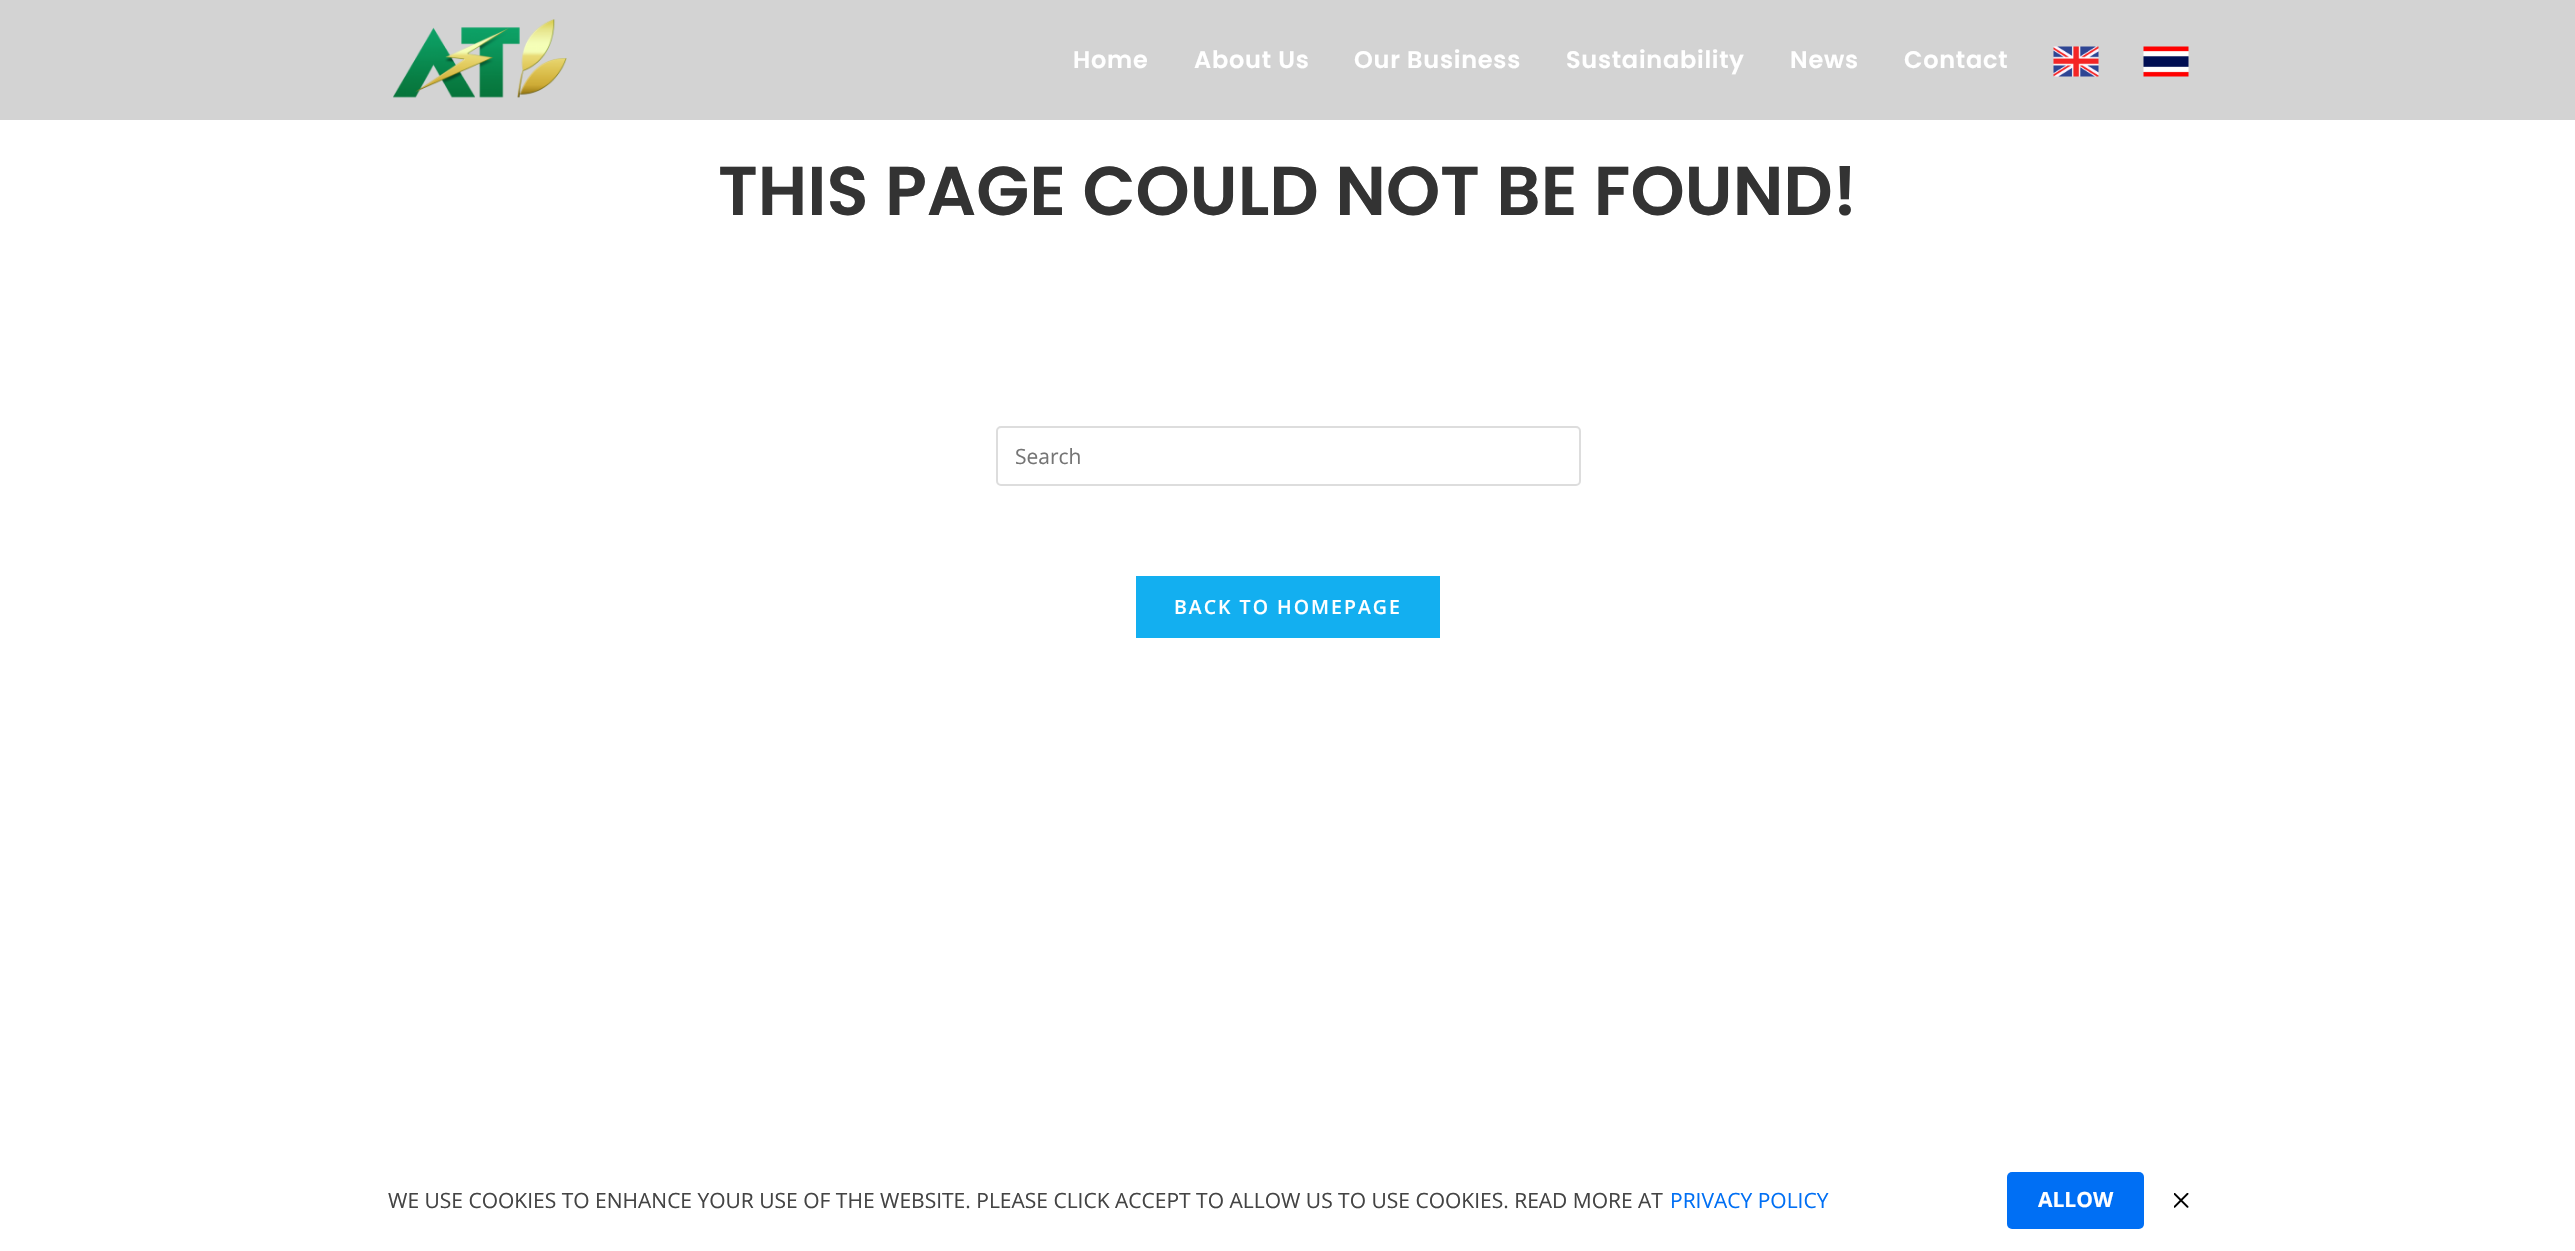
#include "include/core/SkBlurTypes.h"
#include "include/core/SkCanvas.h"
#include "include/core/SkData.h"
#include "include/core/SkFont.h"
#include "include/core/SkFontMgr.h"
#include "include/core/SkImage.h"
#include "include/core/SkMaskFilter.h"
#include "include/core/SkPaint.h"
#include "include/core/SkPathBuilder.h"
#include "include/core/SkTextBlob.h"
#include "include/effects/SkDashPathEffect.h"
#include "include/effects/SkGradientShader.h"
#include "include/utils/SkParsePath.h"

extern sk_sp<SkFontMgr> fontMgr;

void draw(SkCanvas* canvas) {
    SkPaint p;
    p.setAntiAlias(true);
    auto font = [&](const char* family, int weight, float size, bool italic = false) {
        SkFontStyle style(weight, SkFontStyle::kNormal_Width,
            italic ? SkFontStyle::kItalic_Slant : SkFontStyle::kUpright_Slant);
        SkFont result(fontMgr->matchFamilyStyle(family, style), size);
        result.setSubpixel(true);
        return result;
    };
    auto drawTracked = [&](const char* s, float x, float y, const SkFont& font, const SkPaint& ink, float letter, float word) {
        std::vector<SkGlyphID> glyphs(font.countText(s, strlen(s), SkTextEncoding::kUTF8));
        std::vector<float> xs(glyphs.size());
        font.textToGlyphs(s, strlen(s), SkTextEncoding::kUTF8, glyphs);
        font.getXPos(glyphs, xs, x);
        float extra = 0;
        for (size_t i = 0; i < glyphs.size(); i++) {
            xs[i] += extra;
            extra += letter + word * (glyphs[i] == font.unicharToGlyph(' '));
        }
        canvas->drawTextBlob(SkTextBlob::MakeFromPosHGlyphs(glyphs, xs, y, font), 0, 0, ink);
    };
    auto drawPhoto = [&](const char* path, float l, float t, float r, float b) {
        auto image = SkImages::DeferredFromEncodedData(SkData::MakeFromFileName(path));
        canvas->drawImageRect(image, SkRect::MakeLTRB(l, t, r, b), SkSamplingOptions());
    };
    canvas->clear(0xFFFFFFFF);
    p.setColor(0xFFD3D3D3);
    canvas->drawRect(SkRect::MakeLTRB(0, 0, 2575, 120), p);
    drawPhoto("media/1.png", 393, 19, 567, 98);
    auto font1 = font("Poppins", 600, 24);
    p.setColor(0xFFFFFFFF);
    {
        const struct { const char* s; float x, y; } items[] = {
            {"Home", 1073, 68},
            {"About Us", 1194, 68},
            {"Our Business", 1354, 68},
            {"Sustainability", 1566, 68},
            {"News", 1790, 68},
            {"Contact", 1904, 68},
        };
        for (auto [s, x, y] : items) {
            drawTracked(s, x, y, font1, p, 0.75f, 0);
        }
    }
    drawPhoto("media/2.png", 2053, 46, 2099, 77);
    drawPhoto("media/3.png", 2143, 46, 2189, 77);
    auto font2 = font("Poppins", 600, 69);
    p.setColor(0xFF333333);
    canvas->drawString("THIS PAGE COULD NOT BE FOUND!", 718, 215, font2, p);
    p.setStyle(SkPaint::kStroke_Style);
    p.setStrokeWidth(2);
    p.setColor(0xFFDDDDDD);
    canvas->drawRoundRect(SkRect::MakeLTRB(997, 427, 1580, 485), 4, 4, p);
    auto font3 = font("Open Sans", 400, 21);
    p.setStyle(SkPaint::kFill_Style);
    p.setColor(0xFF757575);
    canvas->drawString("Search", 1015, 464, font3, p);
    p.setColor(0xFF13AFF0);
    canvas->drawRect(SkRect::MakeLTRB(1136, 576, 1440, 638), p);
    auto font4 = font("Open Sans", 600, 19.5f);
    p.setColor(0xFFFFFFFF);
    drawTracked("BACK TO HOMEPAGE", 1174, 614, font4, p, 2, 0);
    p.setColor(0xFF444444);
    canvas->drawString("WE USE COOKIES TO ENHANCE YOUR USE OF THE WEBSITE. PLEASE CLICK ACCEPT TO ALLOW US TO USE COOKIES. READ MORE AT", 388, 1208, font3, p);
    p.setColor(0xFF006FF4);
    canvas->drawString("PRIVACY POLICY", 1670, 1208, font3, p);
    canvas->drawRoundRect(SkRect::MakeLTRB(2007, 1172, 2144, 1229), 5, 5, p);
    auto font5 = font("Open Sans", 700, 21);
    p.setColor(0xFFFFFFFF);
    canvas->drawString("ALLOW", 2038, 1207, font5, p);
    drawPhoto("media/4.png", 2174, 1193, 2189, 1208);
}
